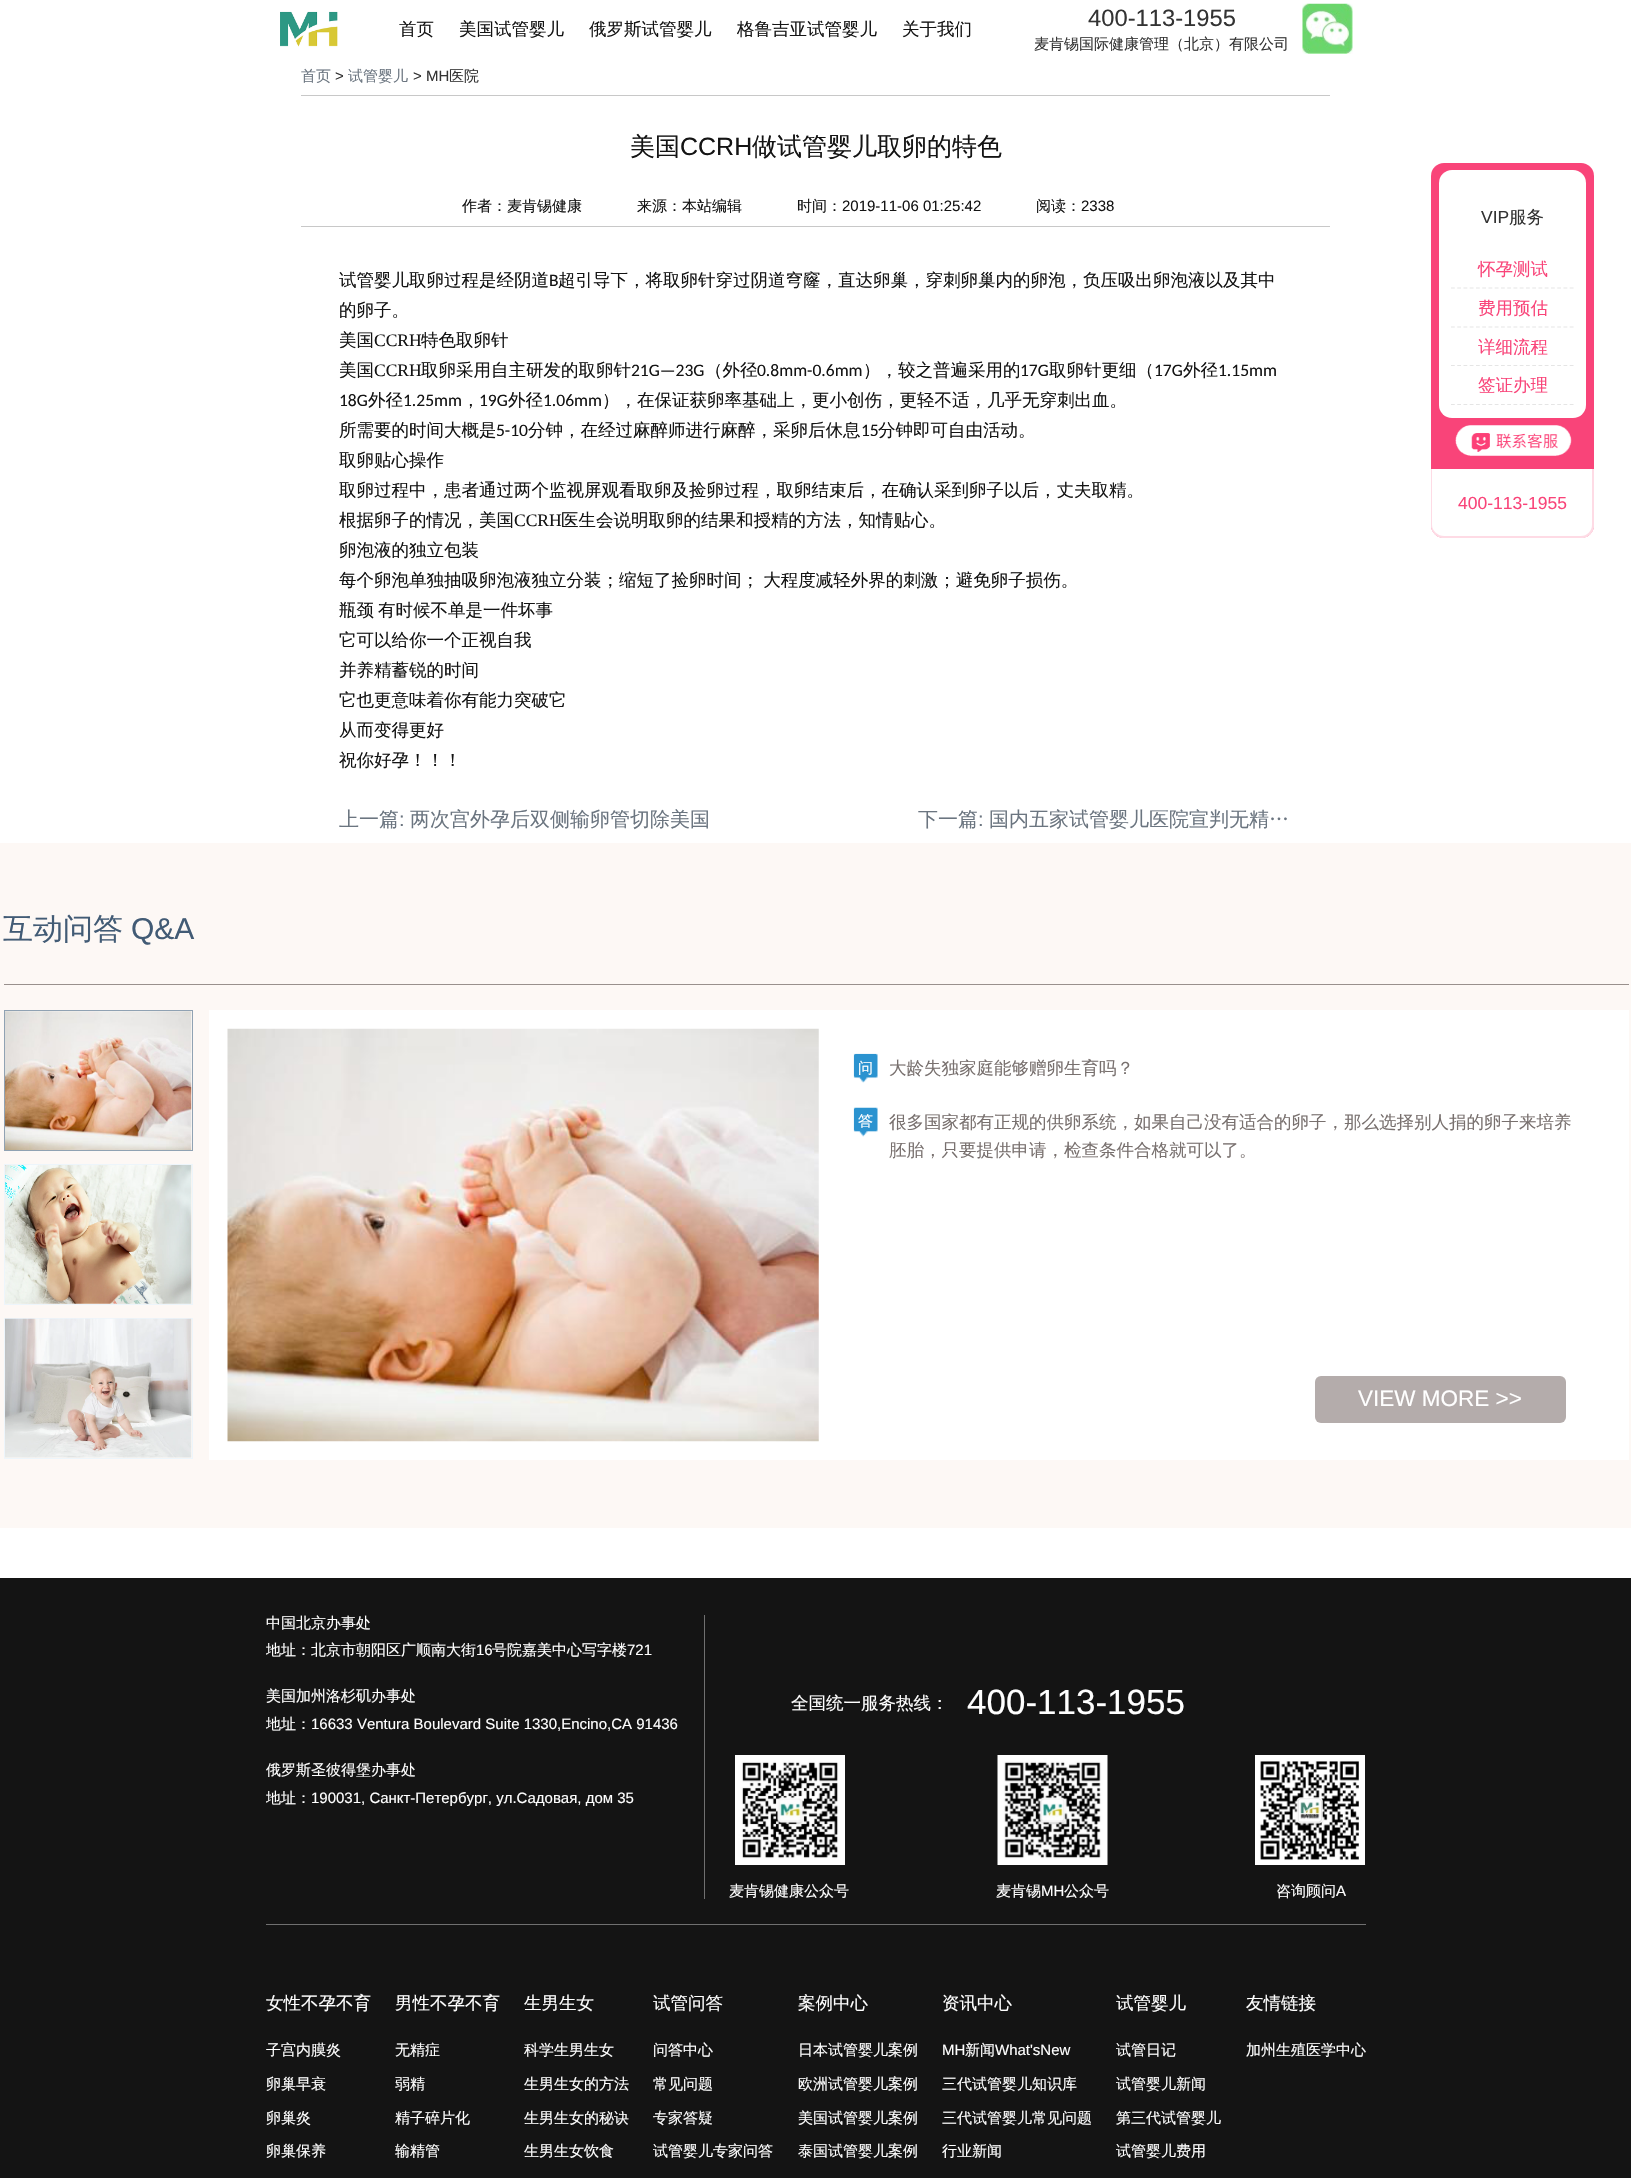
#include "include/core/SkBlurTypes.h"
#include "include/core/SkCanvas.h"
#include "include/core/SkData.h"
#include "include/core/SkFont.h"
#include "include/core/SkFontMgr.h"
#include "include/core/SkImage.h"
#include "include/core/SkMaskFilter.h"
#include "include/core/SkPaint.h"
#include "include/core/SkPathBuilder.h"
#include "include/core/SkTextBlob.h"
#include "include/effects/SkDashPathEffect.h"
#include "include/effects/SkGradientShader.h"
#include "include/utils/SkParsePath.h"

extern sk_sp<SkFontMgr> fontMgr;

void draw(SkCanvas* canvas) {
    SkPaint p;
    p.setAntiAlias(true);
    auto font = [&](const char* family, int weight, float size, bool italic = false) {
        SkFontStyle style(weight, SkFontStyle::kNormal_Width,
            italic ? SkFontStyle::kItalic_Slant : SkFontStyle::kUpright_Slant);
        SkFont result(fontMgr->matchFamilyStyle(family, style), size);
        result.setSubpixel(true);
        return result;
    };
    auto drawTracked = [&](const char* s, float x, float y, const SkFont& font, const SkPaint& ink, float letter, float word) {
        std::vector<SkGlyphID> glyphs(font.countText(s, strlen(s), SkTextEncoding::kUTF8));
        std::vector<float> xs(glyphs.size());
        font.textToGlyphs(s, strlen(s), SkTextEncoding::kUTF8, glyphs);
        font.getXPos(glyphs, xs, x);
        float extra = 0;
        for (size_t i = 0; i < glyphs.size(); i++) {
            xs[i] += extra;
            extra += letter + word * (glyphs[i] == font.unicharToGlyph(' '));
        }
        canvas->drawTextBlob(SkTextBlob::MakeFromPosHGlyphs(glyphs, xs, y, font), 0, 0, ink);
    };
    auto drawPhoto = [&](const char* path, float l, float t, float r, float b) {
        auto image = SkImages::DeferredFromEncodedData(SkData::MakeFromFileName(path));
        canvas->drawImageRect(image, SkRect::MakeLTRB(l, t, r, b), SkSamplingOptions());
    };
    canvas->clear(0xFFFFFFFF);
    drawPhoto("media/1.png", 280, 11, 338, 47);
    auto font1 = font("WenQuanYi Zen Hei", 500, 17.5f);
    p.setColor(0xFF141414);
    {
        const struct { const char* s; float x, y; } items[] = {
            {"首页", 399, 35},
            {"美国试管婴儿", 459, 35},
            {"俄罗斯试管婴儿", 589, 35},
            {"格鲁吉亚试管婴儿", 737, 35},
            {"关于我们", 902, 35},
        };
        for (auto [s, x, y] : items) {
            canvas->drawString(s, x, y, font1, p);
        }
    }
    auto font2 = font("Liberation Sans", 400, 23.75f);
    p.setColor(0xFF333333);
    canvas->drawString("400-113-1955", 1088, 26, font2, p);
    auto font3 = font("WenQuanYi Zen Hei", 500, 15);
    canvas->drawString("麦肯锡国际健康管理（北京）有限公司", 1034, 49, font3, p);
    drawPhoto("media/2.png", 1302, 3, 1353, 54);
    p.setColor(0xFFC8C8C8);
    canvas->drawRect(SkRect::MakeLTRB(301, 95, 1330, 96), p);
    p.setColor(0xFF6B7580);
    canvas->drawString("首页", 301, 81, font3, p);
    auto font4 = font("Liberation Sans", 400, 15);
    p.setColor(0xFF333333);
    canvas->drawString(">", 335, 81, font4, p);
    p.setColor(0xFF6B7580);
    canvas->drawString("试管婴儿", 348, 81, font3, p);
    p.setColor(0xFF333333);
    canvas->drawString("> MH", 413, 81, font4, p);
    canvas->drawString("医院", 449, 81, font3, p);
    p.setColor(0xFFC8C8C8);
    canvas->drawRect(SkRect::MakeLTRB(301, 226, 1330, 227), p);
    auto font5 = font("WenQuanYi Zen Hei", 500, 25);
    p.setColor(0xFF141414);
    canvas->drawString("美国", 630, 155, font5, p);
    auto font6 = font("Liberation Sans", 400, 25);
    canvas->drawString("CCRH", 680, 155, font6, p);
    canvas->drawString("做试管婴儿取卵的特色", 752, 155, font5, p);
    {
        const struct { const char* s; float x, y; } items[] = {
            {"作者：麦肯锡健康", 462, 211},
            {"来源：本站编辑", 637, 211},
            {"时间：", 797, 211},
        };
        for (auto [s, x, y] : items) {
            canvas->drawString(s, x, y, font3, p);
        }
    }
    canvas->drawString("2019-11-06 01:25:42", 842, 211, font4, p);
    canvas->drawString("阅读：", 1036, 211, font3, p);
    canvas->drawString("2338", 1081, 211, font4, p);
    canvas->drawString("试管婴儿取卵过程是经阴道", 339, 286, font1, p);
    auto font7 = font("Carlito", 400, 17.5f);
    canvas->drawString("B", 549, 286, font7, p);
    {
        const struct { const char* s; float x, y; } items[] = {
            {"超引导下，将取卵针穿过阴道穹窿，直达卵巢，穿刺卵巢内的卵泡，负压吸出卵泡液以及其中", 558, 286},
            {"的卵子。", 339, 316},
            {"美国", 339, 346},
        };
        for (auto [s, x, y] : items) {
            canvas->drawString(s, x, y, font1, p);
        }
    }
    auto font8 = font("Liberation Serif", 400, 17.5f);
    canvas->drawString("CCRH", 374, 346, font8, p);
    canvas->drawString("特色取卵针", 421, 346, font1, p);
    canvas->drawString("美国", 339, 376, font1, p);
    canvas->drawString("CCRH", 374, 376, font8, p);
    canvas->drawString("取卵采用自主研发的取卵针", 421, 376, font1, p);
    canvas->drawString("21G—23G", 631, 376, font7, p);
    canvas->drawString("（外径", 705, 376, font1, p);
    canvas->drawString("0.8mm-0.6mm", 757, 376, font7, p);
    canvas->drawString("），较之普遍采用的", 863, 376, font1, p);
    canvas->drawString("17G", 1020, 376, font7, p);
    canvas->drawString("取卵针更细（", 1049, 376, font1, p);
    canvas->drawString("17G", 1154, 376, font7, p);
    canvas->drawString("外径", 1183, 376, font1, p);
    canvas->drawString("1.15mm", 1218, 376, font7, p);
    canvas->drawString("18G", 339, 406, font7, p);
    canvas->drawString("外径", 368, 406, font1, p);
    canvas->drawString("1.25mm", 403, 406, font7, p);
    canvas->drawString("，", 462, 406, font1, p);
    canvas->drawString("19G", 479, 406, font7, p);
    canvas->drawString("外径", 508, 406, font1, p);
    canvas->drawString("1.06mm", 543, 406, font7, p);
    canvas->drawString("），在保证获卵率基础上，更小创伤，更轻不适，几乎无穿刺出血。", 602, 406, font1, p);
    canvas->drawString("所需要的时间大概是", 339, 436, font1, p);
    canvas->drawString("5-10", 496, 436, font7, p);
    canvas->drawString("分钟，在经过麻醉师进行麻醉，采卵后休息", 528, 436, font1, p);
    canvas->drawString("15", 861, 436, font7, p);
    {
        const struct { const char* s; float x, y; } items[] = {
            {"分钟即可自由活动。", 878, 436},
            {"取卵贴心操作", 339, 466},
            {"取卵过程中，患者通过两个监视屏观看取卵及捡卵过程，取卵结束后，在确认采到卵子以后，丈夫取精。", 339, 496},
            {"根据卵子的情况，美国", 339, 526},
        };
        for (auto [s, x, y] : items) {
            canvas->drawString(s, x, y, font1, p);
        }
    }
    canvas->drawString("CCRH", 514, 526, font8, p);
    canvas->drawString("医生会说明取卵的结果和授精的方法，知情贴心。", 561, 526, font1, p);
    canvas->drawString("卵泡液的独立包装", 339, 556, font1, p);
    drawTracked("每个卵泡单独抽吸卵泡液独立分装；缩短了捡卵时间； 大程度减轻外界的刺激；避免卵子损伤。", 339, 586, font1, p, 0, -1);
    {
        const struct { const char* s; float x, y; } items[] = {
            {"瓶颈", 339, 616},
            {"有时候不单是一件坏事", 378, 616},
            {"它可以给你一个正视自我", 339, 646},
            {"并养精蓄锐的时间", 339, 676},
            {"它也更意味着你有能力突破它", 339, 706},
            {"从而变得更好", 339, 736},
            {"祝你好孕！！！", 339, 766},
        };
        for (auto [s, x, y] : items) {
            canvas->drawString(s, x, y, font1, p);
        }
    }
    auto font9 = font("WenQuanYi Zen Hei", 500, 20);
    p.setColor(0xFF6B7580);
    canvas->drawString("上一篇", 339, 826, font9, p);
    auto font10 = font("Liberation Sans", 400, 20);
    canvas->drawString(":", 399, 826, font10, p);
    canvas->drawString("两次宫外孕后双侧输卵管切除美国", 410, 826, font9, p);
    canvas->drawString("下一篇", 918, 826, font9, p);
    canvas->drawString(":", 978, 826, font10, p);
    canvas->drawString("国内五家试管婴儿医院宣判无精…", 989, 826, font9, p);
    p.setColor(0xFFF94479);
    canvas->drawRoundRect(SkRect::MakeLTRB(1431, 163, 1594, 538), 13, 13, p);
    p.setColor(0xFFFFFFFF);
    canvas->drawRoundRect(SkRect::MakeLTRB(1439, 170, 1586, 418), 13, 13, p);
    auto font11 = font("Liberation Sans", 400, 17.5f);
    p.setColor(0xFF333333);
    canvas->drawString("VIP", 1481, 223, font11, p);
    canvas->drawString("服务", 1509, 223, font1, p);
    p.setStyle(SkPaint::kStroke_Style);
    p.setStrokeWidth(1.2f);
    p.setColor(0xFFE5E5E5);
    p.setPathEffect(SkDashPathEffect::Make({{3.75f, 2.5f}}, 0));
    canvas->drawPath(SkPathBuilder().moveTo(1451, 288).lineTo(1574, 288).detach(), p);
    p.setPathEffect(nullptr);
    p.setStyle(SkPaint::kFill_Style);
    p.setColor(0xFFF94479);
    canvas->drawString("怀孕测试", 1478, 275, font1, p);
    p.setStyle(SkPaint::kStroke_Style);
    p.setColor(0xFFE5E5E5);
    p.setPathEffect(SkDashPathEffect::Make({{3.75f, 2.5f}}, 0));
    canvas->drawPath(SkPathBuilder().moveTo(1451, 327).lineTo(1574, 327).detach(), p);
    p.setPathEffect(nullptr);
    p.setStyle(SkPaint::kFill_Style);
    p.setColor(0xFFF94479);
    canvas->drawString("费用预估", 1478, 314, font1, p);
    p.setStyle(SkPaint::kStroke_Style);
    p.setColor(0xFFE5E5E5);
    p.setPathEffect(SkDashPathEffect::Make({{3.75f, 2.5f}}, 0));
    canvas->drawPath(SkPathBuilder().moveTo(1451, 365.5f).lineTo(1574, 365.5f).detach(), p);
    p.setPathEffect(nullptr);
    p.setStyle(SkPaint::kFill_Style);
    p.setColor(0xFFF94479);
    canvas->drawString("详细流程", 1478, 353, font1, p);
    p.setStyle(SkPaint::kStroke_Style);
    p.setColor(0xFFE5E5E5);
    p.setPathEffect(SkDashPathEffect::Make({{3.75f, 2.5f}}, 0));
    canvas->drawPath(SkPathBuilder().moveTo(1451, 404.5f).lineTo(1574, 404.5f).detach(), p);
    p.setPathEffect(nullptr);
    p.setStyle(SkPaint::kFill_Style);
    p.setColor(0xFFF94479);
    canvas->drawString("签证办理", 1478, 391, font1, p);
    drawPhoto("media/3.png", 1455, 425, 1572, 456);
    p.setColor(0xFFFFFFFF);
    canvas->drawPath(SkPathBuilder().moveTo(1431, 469).lineTo(1594, 469).lineTo(1594, 525).cubicTo(1594, 532, 1588, 538, 1581, 538).lineTo(1444, 538).cubicTo(1437, 538, 1431, 532, 1431, 525).close().detach(), p);
    p.setColor(0xFFFEDBE5);
    canvas->drawPath(SkPathBuilder(SkPathFillType::kEvenOdd).moveTo(1431, 469).lineTo(1594, 469).lineTo(1594, 525).cubicTo(1594, 532, 1588, 538, 1581, 538).lineTo(1444, 538).cubicTo(1437, 538, 1431, 532, 1431, 525).close().moveTo(1432, 469).lineTo(1592, 469).lineTo(1592, 525).cubicTo(1592, 531, 1587, 536, 1581, 536).lineTo(1444, 536).cubicTo(1438, 536, 1432, 531, 1432, 525).close().detach(), p);
    p.setColor(0xFFF94479);
    canvas->drawString("400-113-1955", 1458, 509, font11, p);
    p.setColor(0xFFFDF8F5);
    canvas->drawRect(SkRect::MakeLTRB(0, 843, 1631, 1528), p);
    p.setColor(0xFF99908D);
    canvas->drawRect(SkRect::MakeLTRB(4, 984, 1629, 985), p);
    auto font12 = font("WenQuanYi Zen Hei", 500, 30);
    p.setColor(0xFF425B75);
    canvas->drawString("互动问答", 3, 939, font12, p);
    auto font13 = font("Liberation Sans", 400, 30);
    canvas->drawString("Q&A", 131, 939, font13, p);
    p.setStyle(SkPaint::kStroke_Style);
    p.setStrokeWidth(1);
    p.setColor(0xFF90A2B3);
    canvas->drawRect(SkRect::MakeLTRB(4.5f, 1010.5f, 192.5f, 1150.5f), p);
    drawPhoto("media/4.png", 5, 1011, 192, 1150);
    p.setColor(0xFFEDF5FB);
    canvas->drawRect(SkRect::MakeLTRB(4.5f, 1164.5f, 192.5f, 1304.5f), p);
    drawPhoto("media/5.png", 5, 1165, 192, 1304);
    canvas->drawRect(SkRect::MakeLTRB(4.5f, 1318.5f, 192.5f, 1458.5f), p);
    drawPhoto("media/6.png", 5, 1318, 192, 1458);
    p.setStyle(SkPaint::kFill_Style);
    p.setColor(0xFFFFFFFF);
    canvas->drawRect(SkRect::MakeLTRB(209, 1010, 1629, 1460), p);
    drawPhoto("media/7.png", 227, 1028, 819, 1442);
    drawPhoto("media/8.png", 853, 1053, 878, 1083);
    canvas->drawString("问", 858, 1073, font3, p);
    p.setColor(0xFF78706E);
    canvas->drawString("大龄失独家庭能够赠卵生育吗？", 889, 1074, font1, p);
    drawPhoto("media/9.png", 853, 1107, 878, 1137);
    p.setColor(0xFFFFFFFF);
    canvas->drawString("答", 858, 1126, font3, p);
    p.setColor(0xFF78706E);
    canvas->drawString("很多国家都有正规的供卵系统，如果自己没有适合的卵子，那么选择别人捐的卵子来培养", 889, 1128, font1, p);
    canvas->drawString("胚胎，只要提供申请，检查条件合格就可以了。", 889, 1156, font1, p);
    p.setColor(0xFFB4ACAB);
    canvas->drawRoundRect(SkRect::MakeLTRB(1315, 1376, 1566, 1423), 6, 6, p);
    auto font14 = font("Liberation Sans", 400, 22.5f);
    p.setColor(0xFFFFFFFF);
    canvas->drawString("VIEW MORE >>", 1358, 1406, font14, p);
    p.setColor(0xFF141414);
    canvas->drawRect(SkRect::MakeLTRB(0, 1578, 1631, 2178), p);
    p.setColor(0xFF707070);
    canvas->drawRect(SkRect::MakeLTRB(704, 1615, 705, 1899), p);
    p.setColor(0xFFFFFFFF);
    canvas->drawString("中国北京办事处", 266, 1628, font3, p);
    canvas->drawString("地址：北京市朝阳区广顺南大街", 266, 1655, font3, p);
    canvas->drawString("16", 476, 1655, font4, p);
    canvas->drawString("号院嘉美中心写字楼", 492, 1655, font3, p);
    canvas->drawString("721", 627, 1655, font4, p);
    canvas->drawString("美国加州洛杉矶办事处", 266, 1701, font3, p);
    canvas->drawString("地址：", 266, 1729, font3, p);
    canvas->drawString("16633 Ventura Boulevard Suite 1330,Encino,CA 91436", 311, 1729, font4, p);
    canvas->drawString("俄罗斯圣彼得堡办事处", 266, 1775, font3, p);
    canvas->drawString("地址：", 266, 1803, font3, p);
    canvas->drawString("190031, Санкт-Петербург, ул.Садовая, дом 35", 311, 1803, font4, p);
    canvas->drawString("全国统一服务热线：", 791, 1709, font1, p);
    auto font15 = font("Liberation Sans", 400, 35);
    canvas->drawString("400-113-1955", 967, 1714, font15, p);
    drawPhoto("media/10.png", 735, 1755, 845, 1865);
    canvas->drawString("麦肯锡健康公众号", 729, 1896, font3, p);
    drawPhoto("media/11.png", 997, 1755, 1108, 1865);
    canvas->drawString("麦肯锡", 996, 1896, font3, p);
    canvas->drawString("MH", 1041, 1896, font4, p);
    canvas->drawString("公众号", 1064, 1896, font3, p);
    drawPhoto("media/12.png", 1255, 1755, 1365, 1865);
    canvas->drawString("咨询顾问", 1276, 1896, font3, p);
    canvas->drawString("A", 1336, 1896, font4, p);
    p.setColor(0xFF707070);
    canvas->drawRect(SkRect::MakeLTRB(266, 1924, 1366, 1925), p);
    p.setColor(0xFFFFFFFF);
    canvas->drawString("女性不孕不育", 266, 2009, font1, p);
    {
        const struct { const char* s; float x, y; } items[] = {
            {"子宫内膜炎", 266, 2055},
            {"卵巢早衰", 266, 2089},
            {"卵巢炎", 266, 2123},
            {"卵巢保养", 266, 2156},
        };
        for (auto [s, x, y] : items) {
            canvas->drawString(s, x, y, font3, p);
        }
    }
    canvas->drawString("男性不孕不育", 395, 2009, font1, p);
    {
        const struct { const char* s; float x, y; } items[] = {
            {"无精症", 395, 2055},
            {"弱精", 395, 2089},
            {"精子碎片化", 395, 2123},
            {"输精管", 395, 2156},
        };
        for (auto [s, x, y] : items) {
            canvas->drawString(s, x, y, font3, p);
        }
    }
    canvas->drawString("生男生女", 524, 2009, font1, p);
    {
        const struct { const char* s; float x, y; } items[] = {
            {"科学生男生女", 524, 2055},
            {"生男生女的方法", 524, 2089},
            {"生男生女的秘诀", 524, 2123},
            {"生男生女饮食", 524, 2156},
        };
        for (auto [s, x, y] : items) {
            canvas->drawString(s, x, y, font3, p);
        }
    }
    canvas->drawString("试管问答", 653, 2009, font1, p);
    {
        const struct { const char* s; float x, y; } items[] = {
            {"问答中心", 653, 2055},
            {"常见问题", 653, 2089},
            {"专家答疑", 653, 2123},
            {"试管婴儿专家问答", 653, 2156},
        };
        for (auto [s, x, y] : items) {
            canvas->drawString(s, x, y, font3, p);
        }
    }
    canvas->drawString("案例中心", 798, 2009, font1, p);
    {
        const struct { const char* s; float x, y; } items[] = {
            {"日本试管婴儿案例", 798, 2055},
            {"欧洲试管婴儿案例", 798, 2089},
            {"美国试管婴儿案例", 798, 2123},
            {"泰国试管婴儿案例", 798, 2156},
        };
        for (auto [s, x, y] : items) {
            canvas->drawString(s, x, y, font3, p);
        }
    }
    canvas->drawString("资讯中心", 942, 2009, font1, p);
    canvas->drawString("MH", 942, 2055, font4, p);
    canvas->drawString("新闻", 965, 2055, font3, p);
    canvas->drawString("What'sNew", 995, 2055, font4, p);
    {
        const struct { const char* s; float x, y; } items[] = {
            {"三代试管婴儿知识库", 942, 2089},
            {"三代试管婴儿常见问题", 942, 2123},
            {"行业新闻", 942, 2156},
        };
        for (auto [s, x, y] : items) {
            canvas->drawString(s, x, y, font3, p);
        }
    }
    canvas->drawString("试管婴儿", 1116, 2009, font1, p);
    {
        const struct { const char* s; float x, y; } items[] = {
            {"试管日记", 1116, 2055},
            {"试管婴儿新闻", 1116, 2089},
            {"第三代试管婴儿", 1116, 2123},
            {"试管婴儿费用", 1116, 2156},
        };
        for (auto [s, x, y] : items) {
            canvas->drawString(s, x, y, font3, p);
        }
    }
    canvas->drawString("友情链接", 1246, 2009, font1, p);
    canvas->drawString("加州生殖医学中心", 1246, 2055, font3, p);
}
